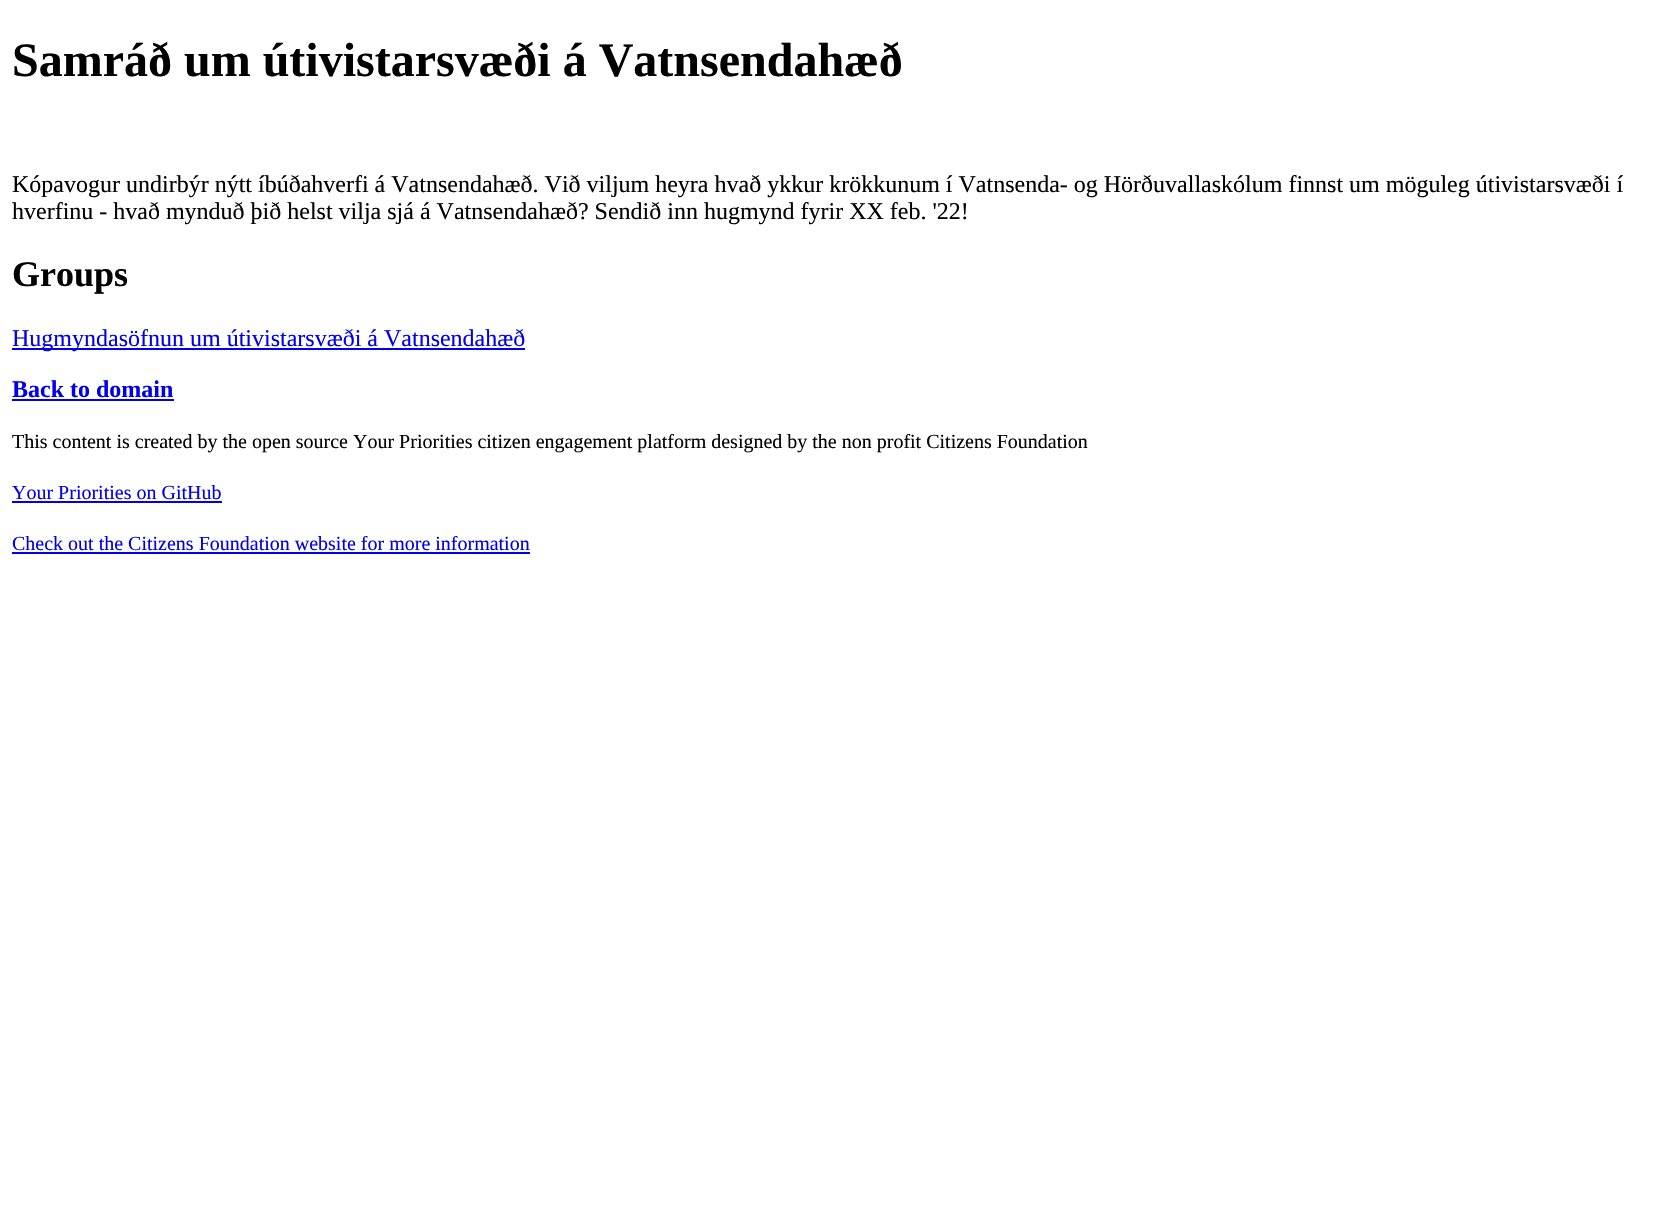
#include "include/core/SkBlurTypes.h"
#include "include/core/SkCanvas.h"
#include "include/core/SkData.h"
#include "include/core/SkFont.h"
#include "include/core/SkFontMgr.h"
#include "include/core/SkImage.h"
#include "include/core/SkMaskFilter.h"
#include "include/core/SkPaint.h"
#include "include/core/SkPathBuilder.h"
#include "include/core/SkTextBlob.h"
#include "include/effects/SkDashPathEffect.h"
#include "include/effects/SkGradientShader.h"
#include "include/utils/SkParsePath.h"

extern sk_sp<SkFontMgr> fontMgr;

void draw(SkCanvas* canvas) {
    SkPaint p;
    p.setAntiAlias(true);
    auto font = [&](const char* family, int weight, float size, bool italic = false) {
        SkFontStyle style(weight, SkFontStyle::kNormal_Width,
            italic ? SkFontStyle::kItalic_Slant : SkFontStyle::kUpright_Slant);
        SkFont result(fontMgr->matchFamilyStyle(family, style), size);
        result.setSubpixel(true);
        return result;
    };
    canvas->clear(0xFFFFFFFF);
    auto font1 = font("Liberation Serif", 700, 48);
    p.setColor(0xFF000000);
    canvas->drawString("Samráð um útivistarsvæði á Vatnsendahæð", 12, 76, font1, p);
    auto font2 = font("Liberation Serif", 400, 24);
    canvas->drawString("Kópavogur undirbýr nýtt íbúðahverfi á Vatnsendahæð. Við viljum heyra hvað ykkur krökkunum í Vatnsenda- og Hörðuvallaskólum finnst um möguleg útivistarsvæði í", 12, 192, font2, p);
    canvas->drawString("hverfinu - hvað mynduð þið helst vilja sjá á Vatnsendahæð? Sendið inn hugmynd fyrir XX feb. '22!", 12, 219, font2, p);
    auto font3 = font("Liberation Serif", 700, 36);
    canvas->drawString("Groups", 12, 286, font3, p);
    p.setColor(0xFF0000EE);
    canvas->drawRect(SkRect::MakeLTRB(12, 348, 525, 350), p);
    canvas->drawString("Hugmyndasöfnun um útivistarsvæði á Vatnsendahæð", 12, 346, font2, p);
    auto font4 = font("Liberation Serif", 700, 24);
    canvas->drawString("Back to domain", 12, 397, font4, p);
    canvas->drawRect(SkRect::MakeLTRB(12, 399, 174, 401), p);
    auto font5 = font("Liberation Serif", 400, 20);
    p.setColor(0xFF000000);
    canvas->drawString("This content is created by the open source Your Priorities citizen engagement platform designed by the non profit Citizens Foundation", 12, 448, font5, p);
    p.setColor(0xFF0000EE);
    canvas->drawString("Your Priorities on GitHub", 12, 499, font5, p);
    canvas->drawRect(SkRect::MakeLTRB(12, 501, 222, 503), p);
    canvas->drawString("Check out the Citizens Foundation website for more information", 12, 550, font5, p);
    canvas->drawRect(SkRect::MakeLTRB(12, 552, 530, 554), p);
}
